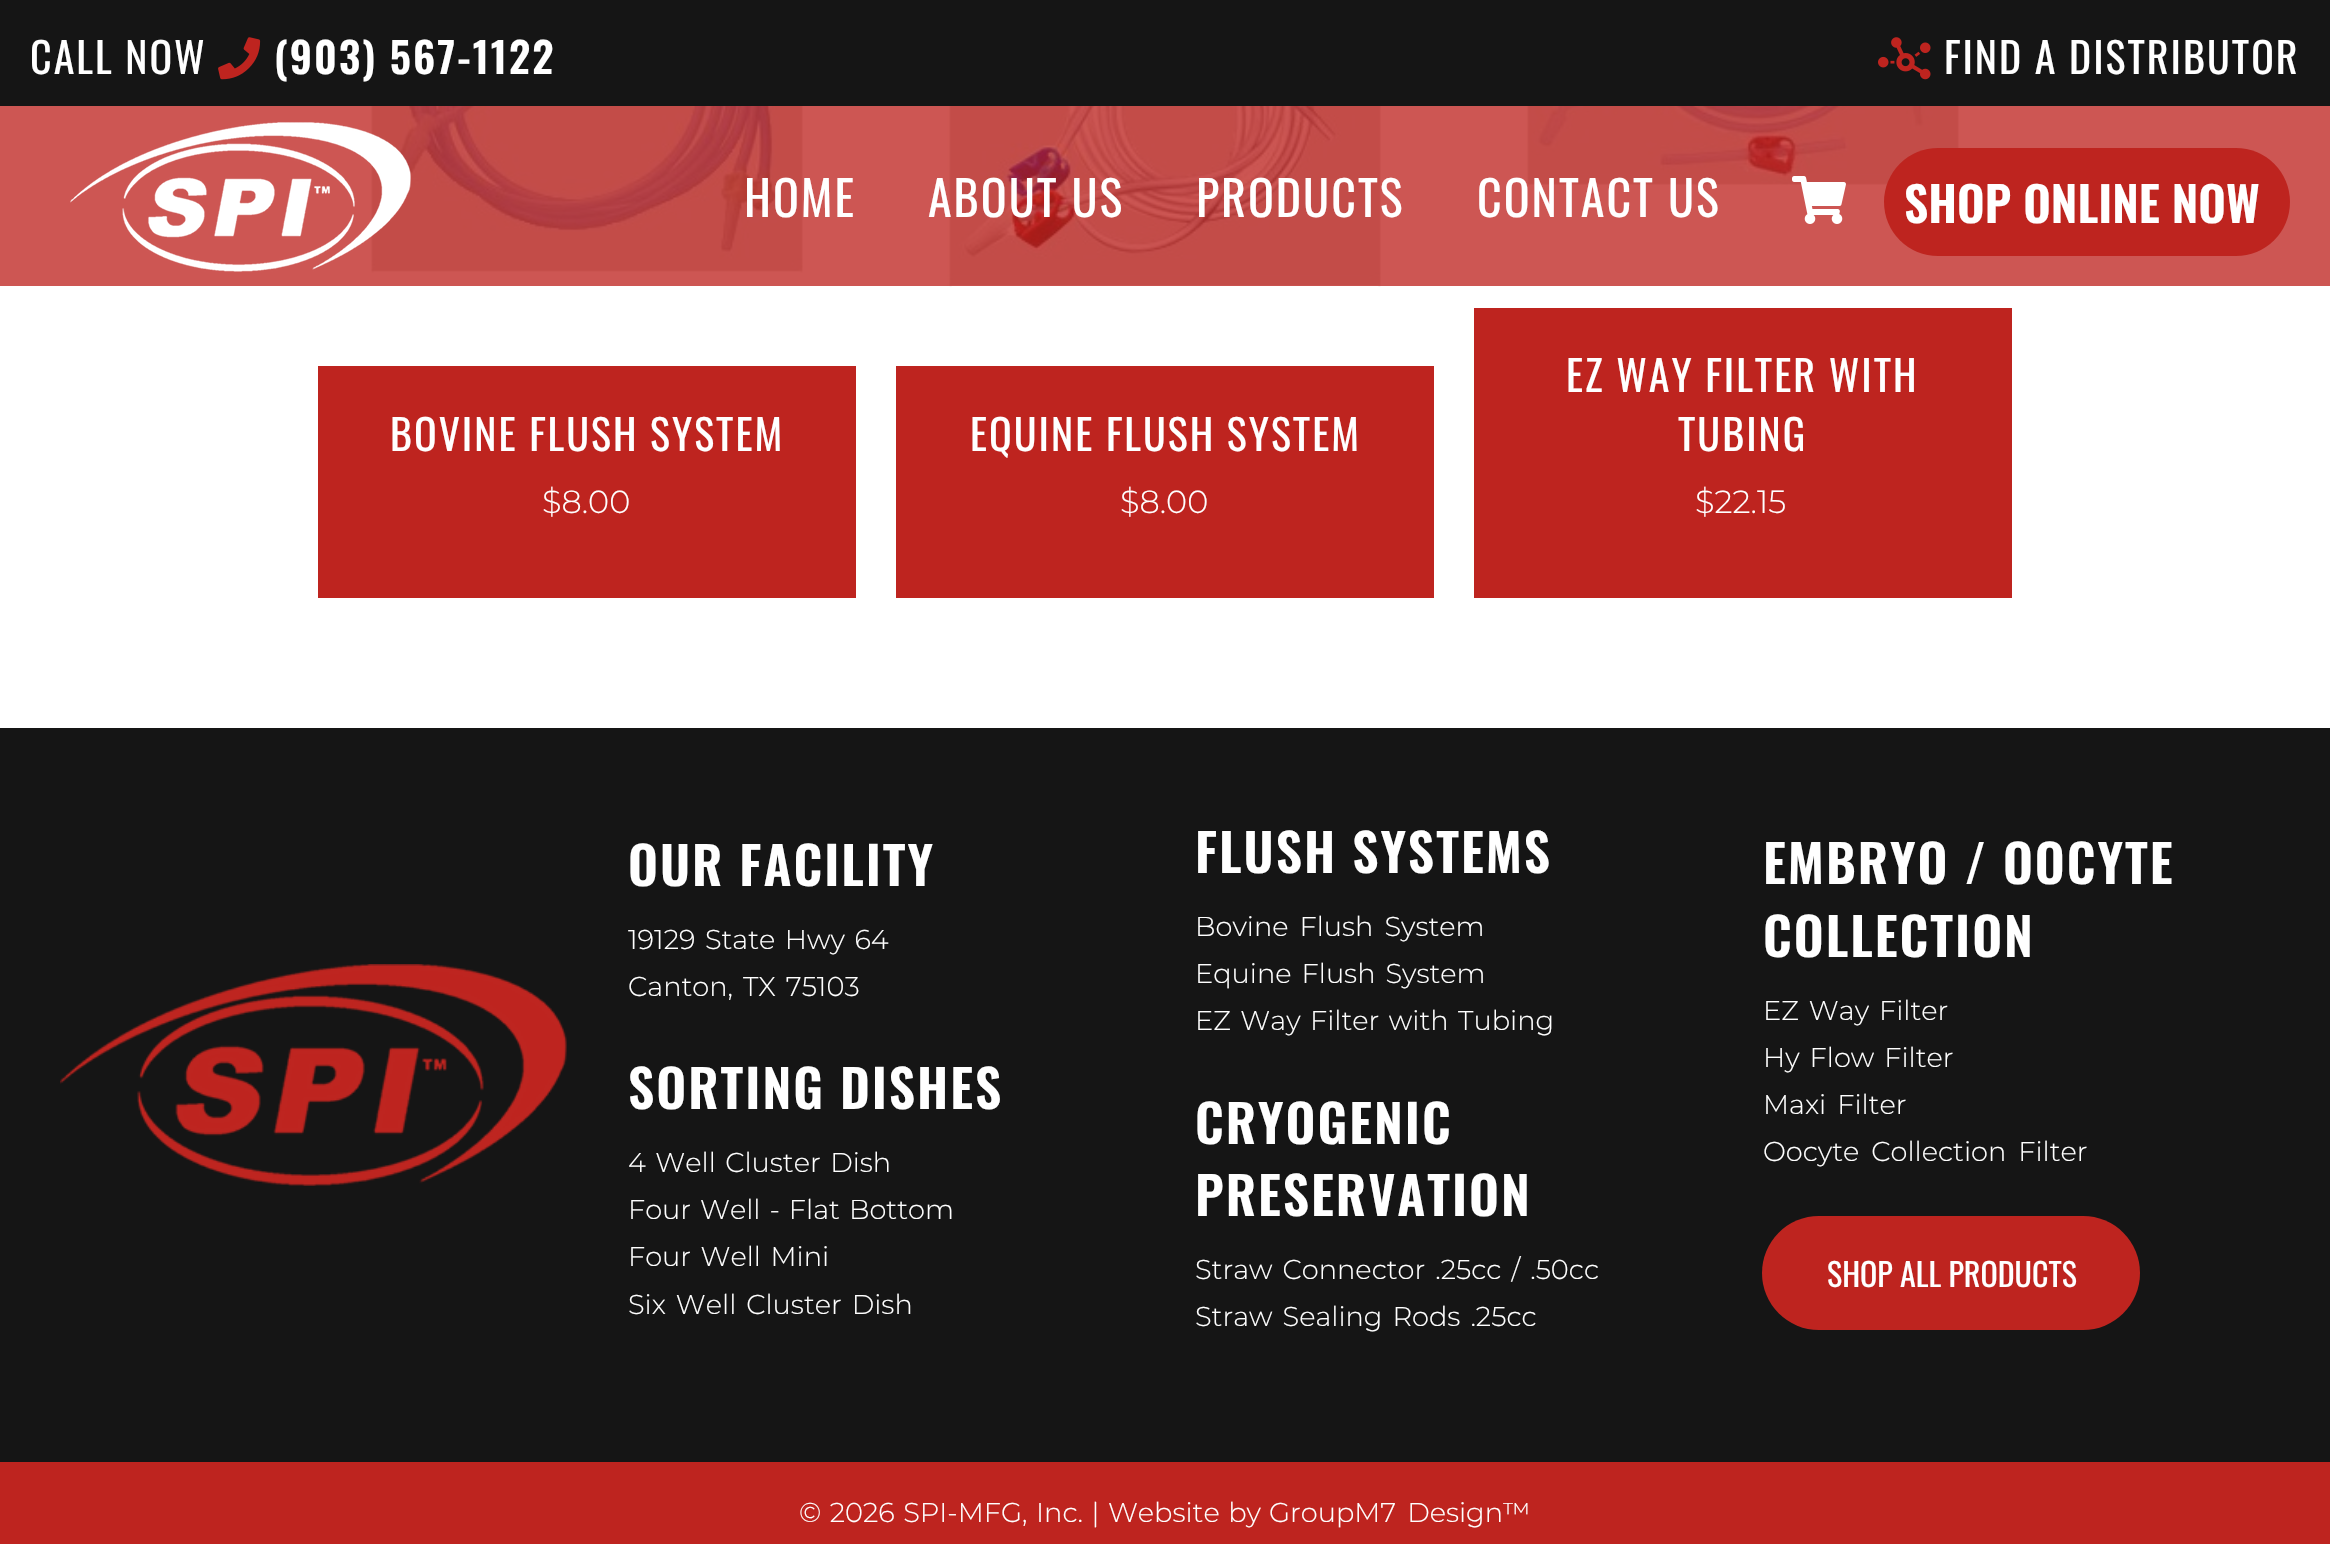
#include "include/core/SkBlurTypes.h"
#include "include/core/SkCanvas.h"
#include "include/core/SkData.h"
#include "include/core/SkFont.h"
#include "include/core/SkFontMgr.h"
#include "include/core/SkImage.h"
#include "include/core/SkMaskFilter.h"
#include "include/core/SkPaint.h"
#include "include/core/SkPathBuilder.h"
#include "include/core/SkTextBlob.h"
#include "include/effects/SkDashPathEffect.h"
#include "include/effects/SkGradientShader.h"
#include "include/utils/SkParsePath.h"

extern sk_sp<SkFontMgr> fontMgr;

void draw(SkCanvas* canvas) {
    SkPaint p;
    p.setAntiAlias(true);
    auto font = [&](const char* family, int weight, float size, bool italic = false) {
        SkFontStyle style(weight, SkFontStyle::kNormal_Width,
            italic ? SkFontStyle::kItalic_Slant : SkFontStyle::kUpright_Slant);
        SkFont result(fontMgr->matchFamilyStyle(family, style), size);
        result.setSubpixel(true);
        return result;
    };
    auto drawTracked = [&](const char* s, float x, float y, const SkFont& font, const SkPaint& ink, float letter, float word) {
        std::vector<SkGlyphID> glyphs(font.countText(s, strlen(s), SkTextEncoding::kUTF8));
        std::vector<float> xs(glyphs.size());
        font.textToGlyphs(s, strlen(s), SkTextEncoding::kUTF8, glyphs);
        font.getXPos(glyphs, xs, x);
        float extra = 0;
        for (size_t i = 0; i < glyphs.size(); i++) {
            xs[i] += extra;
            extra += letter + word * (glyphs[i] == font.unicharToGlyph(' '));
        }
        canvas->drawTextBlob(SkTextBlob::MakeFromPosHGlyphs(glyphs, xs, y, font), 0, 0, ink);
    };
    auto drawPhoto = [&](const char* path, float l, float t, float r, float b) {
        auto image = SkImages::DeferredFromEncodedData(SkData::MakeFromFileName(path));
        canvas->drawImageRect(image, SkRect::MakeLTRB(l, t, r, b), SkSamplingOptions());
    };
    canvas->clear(0xFFFFFFFF);
    p.setColor(0xFFCD5653);
    canvas->drawRect(SkRect::MakeLTRB(0, 106, 2330, 286), p);
    p.setColor(0xFF151515);
    canvas->drawRect(SkRect::MakeLTRB(0, 0, 2330, 106), p);
    auto font1 = font("Oswald", 400, 42);
    p.setColor(0xFFFFFFFF);
    drawTracked("CALL NOW", 30, 74, font1, p, 2, 0);
    drawPhoto("media/1.png", 218, 37, 261, 80);
    auto font2 = font("Oswald", 600, 42);
    drawTracked("(903) 567-1122", 274, 74, font2, p, 2, 0);
    drawPhoto("media/2.png", 1878, 37, 1931, 80);
    drawTracked("FIND A DISTRIBUTOR", 1944, 74, font1, p, 2, 0);
    drawPhoto("media/5.png", 371, 106, 803, 273);
    drawPhoto("media/3.png", 70, 122, 411, 272);
    auto font3 = font("Oswald", 400, 48);
    drawTracked("HOME", 744, 217, font3, p, 2, 0);
    drawPhoto("media/6.png", 947, 106, 1381, 287);
    drawTracked("ABOUT US", 928, 217, font3, p, 2, 0);
    drawTracked("PRODUCTS", 1196, 217, font3, p, 2, 0);
    drawPhoto("media/7.png", 1526, 106, 1959, 186);
    drawTracked("CONTACT US", 1477, 217, font3, p, 2, 0);
    drawPhoto("media/4.png", 1792, 176, 1846, 224);
    p.setColor(0xFFBE241F);
    canvas->drawRoundRect(SkRect::MakeLTRB(1884, 148, 2290, 256), 54, 54, p);
    auto font4 = font("Oswald", 600, 48);
    p.setColor(0xFFFFFFFF);
    canvas->drawString("SHOP ONLINE NOW", 1904, 223, font4, p);
    p.setColor(0xFFBE241F);
    canvas->drawRect(SkRect::MakeLTRB(318, 366, 856, 598), p);
    p.setColor(0xFFFFFFFF);
    drawTracked("BOVINE FLUSH SYSTEM", 390, 451, font1, p, 2, 0);
    auto font5 = font("Montserrat", 300, 32);
    canvas->drawString("$8.00", 542, 513, font5, p);
    p.setColor(0xFFBE241F);
    canvas->drawRect(SkRect::MakeLTRB(896, 366, 1434, 598), p);
    p.setColor(0xFFFFFFFF);
    drawTracked("EQUINE FLUSH SYSTEM", 970, 451, font1, p, 2, 0);
    canvas->drawString("$8.00", 1120, 513, font5, p);
    p.setColor(0xFFBE241F);
    canvas->drawRect(SkRect::MakeLTRB(1474, 308, 2012, 598), p);
    p.setColor(0xFFFFFFFF);
    drawTracked("EZ WAY FILTER WITH", 1566, 392, font1, p, 2, 0);
    drawTracked("TUBING", 1678, 451, font1, p, 2, 0);
    canvas->drawString("$22.15", 1695, 513, font5, p);
    p.setColor(0xFF151515);
    canvas->drawRect(SkRect::MakeLTRB(0, 728, 2330, 1462), p);
    drawPhoto("media/8.png", 60, 964, 567, 1186);
    auto font6 = font("Oswald", 600, 52);
    p.setColor(0xFFFFFFFF);
    drawTracked("OUR FACILITY", 628, 886, font6, p, 2, 0);
    auto font7 = font("Montserrat", 300, 27.25f);
    drawTracked("19129 State Hwy 64", 628, 949, font7, p, 0, 2.5f);
    drawTracked("Canton, TX 75103", 628, 996, font7, p, 0, 3);
    drawTracked("SORTING DISHES", 628, 1109, font6, p, 2, 0);
    drawTracked("4 Well Cluster Dish", 628, 1172, font7, p, 0, 2.5f);
    drawTracked("Four Well - Flat Bottom", 628, 1219, font7, p, 0, 2);
    drawTracked("Four Well Mini", 628, 1266, font7, p, 0, 2.5f);
    drawTracked("Six Well Cluster Dish", 628, 1314, font7, p, 0, 3);
    drawTracked("FLUSH SYSTEMS", 1195, 873, font6, p, 2, 0);
    drawTracked("Bovine Flush System", 1195, 936, font7, p, 0, 4);
    drawTracked("Equine Flush System", 1195, 983, font7, p, 0, 3);
    drawTracked("EZ Way Filter with Tubing", 1195, 1030, font7, p, 0, 2.5f);
    drawTracked("CRYOGENIC", 1195, 1144, font6, p, 2, 0);
    drawTracked("PRESERVATION", 1195, 1216, font6, p, 2, 0);
    drawTracked("Straw Connector .25cc / .50cc", 1195, 1279, font7, p, 0, 3);
    drawTracked("Straw Sealing Rods .25cc", 1195, 1326, font7, p, 0, 3);
    drawTracked("EMBRYO / OOCYTE", 1763, 884, font6, p, 2, 0);
    drawTracked("COLLECTION", 1763, 957, font6, p, 2, 0);
    drawTracked("EZ Way Filter", 1763, 1020, font7, p, 0, 3);
    drawTracked("Hy Flow Filter", 1763, 1067, font7, p, 0, 3);
    drawTracked("Maxi Filter", 1763, 1114, font7, p, 0, 4);
    drawTracked("Oocyte Collection Filter", 1763, 1161, font7, p, 0, 5);
    p.setColor(0xFFBE241F);
    canvas->drawRoundRect(SkRect::MakeLTRB(1762, 1216, 2140, 1330), 57, 57, p);
    auto font8 = font("Oswald", 400, 32);
    p.setColor(0xFFFFFFFF);
    canvas->drawString("SHOP ALL PRODUCTS", 1827, 1287, font8, p);
    p.setColor(0xFFBE241F);
    canvas->drawRect(SkRect::MakeLTRB(0, 1462, 2330, 1544), p);
    p.setColor(0xFFFFFFFF);
    drawTracked("© 2026 SPI-MFG, Inc. | Website by", 799, 1522, font7, p, 0, 1.5f);
    drawTracked("GroupM7 Design™", 1269, 1522, font7, p, 0, 4);
}
